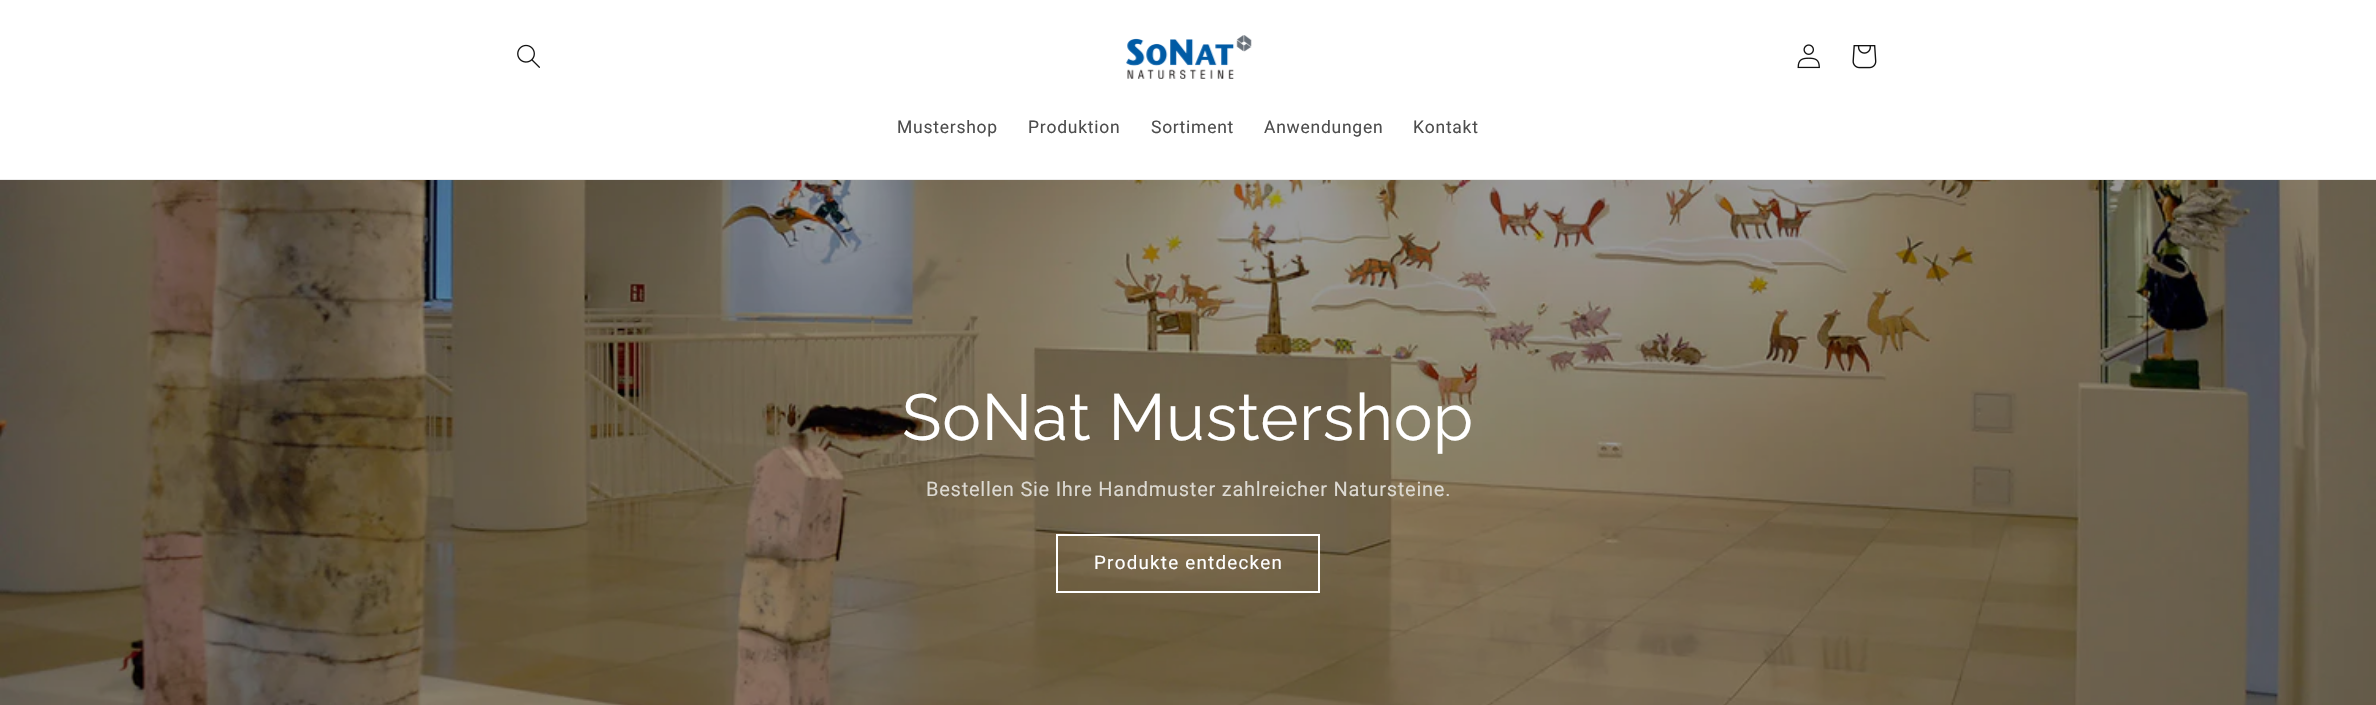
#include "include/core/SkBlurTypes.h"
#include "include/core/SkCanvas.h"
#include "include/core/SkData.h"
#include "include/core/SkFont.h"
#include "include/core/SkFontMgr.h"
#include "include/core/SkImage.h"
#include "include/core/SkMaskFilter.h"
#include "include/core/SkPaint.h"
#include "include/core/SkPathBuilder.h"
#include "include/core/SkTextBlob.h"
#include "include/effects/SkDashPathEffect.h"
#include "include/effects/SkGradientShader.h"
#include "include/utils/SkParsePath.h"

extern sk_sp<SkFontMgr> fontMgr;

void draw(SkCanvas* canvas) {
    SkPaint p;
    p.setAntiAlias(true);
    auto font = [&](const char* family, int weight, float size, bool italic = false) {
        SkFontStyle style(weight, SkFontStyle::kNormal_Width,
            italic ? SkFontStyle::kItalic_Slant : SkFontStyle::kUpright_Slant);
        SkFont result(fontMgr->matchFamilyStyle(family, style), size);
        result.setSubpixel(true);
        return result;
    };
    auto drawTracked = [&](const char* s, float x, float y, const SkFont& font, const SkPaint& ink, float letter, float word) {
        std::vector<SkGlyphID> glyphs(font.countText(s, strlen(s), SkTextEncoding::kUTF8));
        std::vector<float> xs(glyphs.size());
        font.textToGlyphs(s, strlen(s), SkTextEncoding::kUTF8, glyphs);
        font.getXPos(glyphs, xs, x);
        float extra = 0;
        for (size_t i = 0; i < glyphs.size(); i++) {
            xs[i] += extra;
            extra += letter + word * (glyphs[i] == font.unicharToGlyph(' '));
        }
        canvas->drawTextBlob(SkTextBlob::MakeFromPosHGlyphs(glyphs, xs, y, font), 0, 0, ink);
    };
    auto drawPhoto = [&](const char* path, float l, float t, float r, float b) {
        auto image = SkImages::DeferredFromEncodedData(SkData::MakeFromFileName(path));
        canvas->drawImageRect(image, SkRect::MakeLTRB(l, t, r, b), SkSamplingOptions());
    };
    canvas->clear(0xFFFFFFFF);
    p.setColor(0xFFECECEC);
    canvas->drawRect(SkRect::MakeLTRB(0, 179, 2376, 180), p);
    drawPhoto("media/1.png", 517, 44, 540, 68);
    drawPhoto("media/2.png", 1126, 35, 1252, 79);
    drawPhoto("media/3.png", 1797, 44, 1820, 69);
    drawPhoto("media/4.png", 1852, 45, 1877, 69);
    auto font1 = font("Roboto", 400, 17.5f);
    p.setColor(0xFF4D4D4D);
    {
        const struct { const char* s; float x, y; } items[] = {
            {"Mustershop", 897, 133},
            {"Produktion", 1028, 133},
            {"Sortiment", 1151, 133},
            {"Anwendungen", 1264, 133},
            {"Kontakt", 1413, 133},
        };
        for (auto [s, x, y] : items) {
            drawTracked(s, x, y, font1, p, 0.75f, 0);
        }
    }
    drawPhoto("media/5.png", 0, 180, 2376, 705);
    auto font2 = font("Raleway", 400, 65);
    p.setColor(0xFFFFFFFF);
    drawTracked("SoNat Mustershop", 902, 440, font2, p, 0.75f, 0);
    auto font3 = font("Roboto", 400, 20);
    p.setColor(0xFFDCD9D2);
    drawTracked("Bestellen Sie Ihre Handmuster zahlreicher Natursteine.", 926, 496, font3, p, 0.75f, 0);
    p.setStyle(SkPaint::kStroke_Style);
    p.setStrokeWidth(2);
    p.setColor(0xFFFFFFFF);
    canvas->drawRect(SkRect::MakeLTRB(1057, 535, 1319, 592), p);
    auto font4 = font("Roboto", 400, 18.75f);
    p.setStyle(SkPaint::kFill_Style);
    drawTracked("Produkte entdecken", 1094, 569, font4, p, 1.25f, 0);
}
